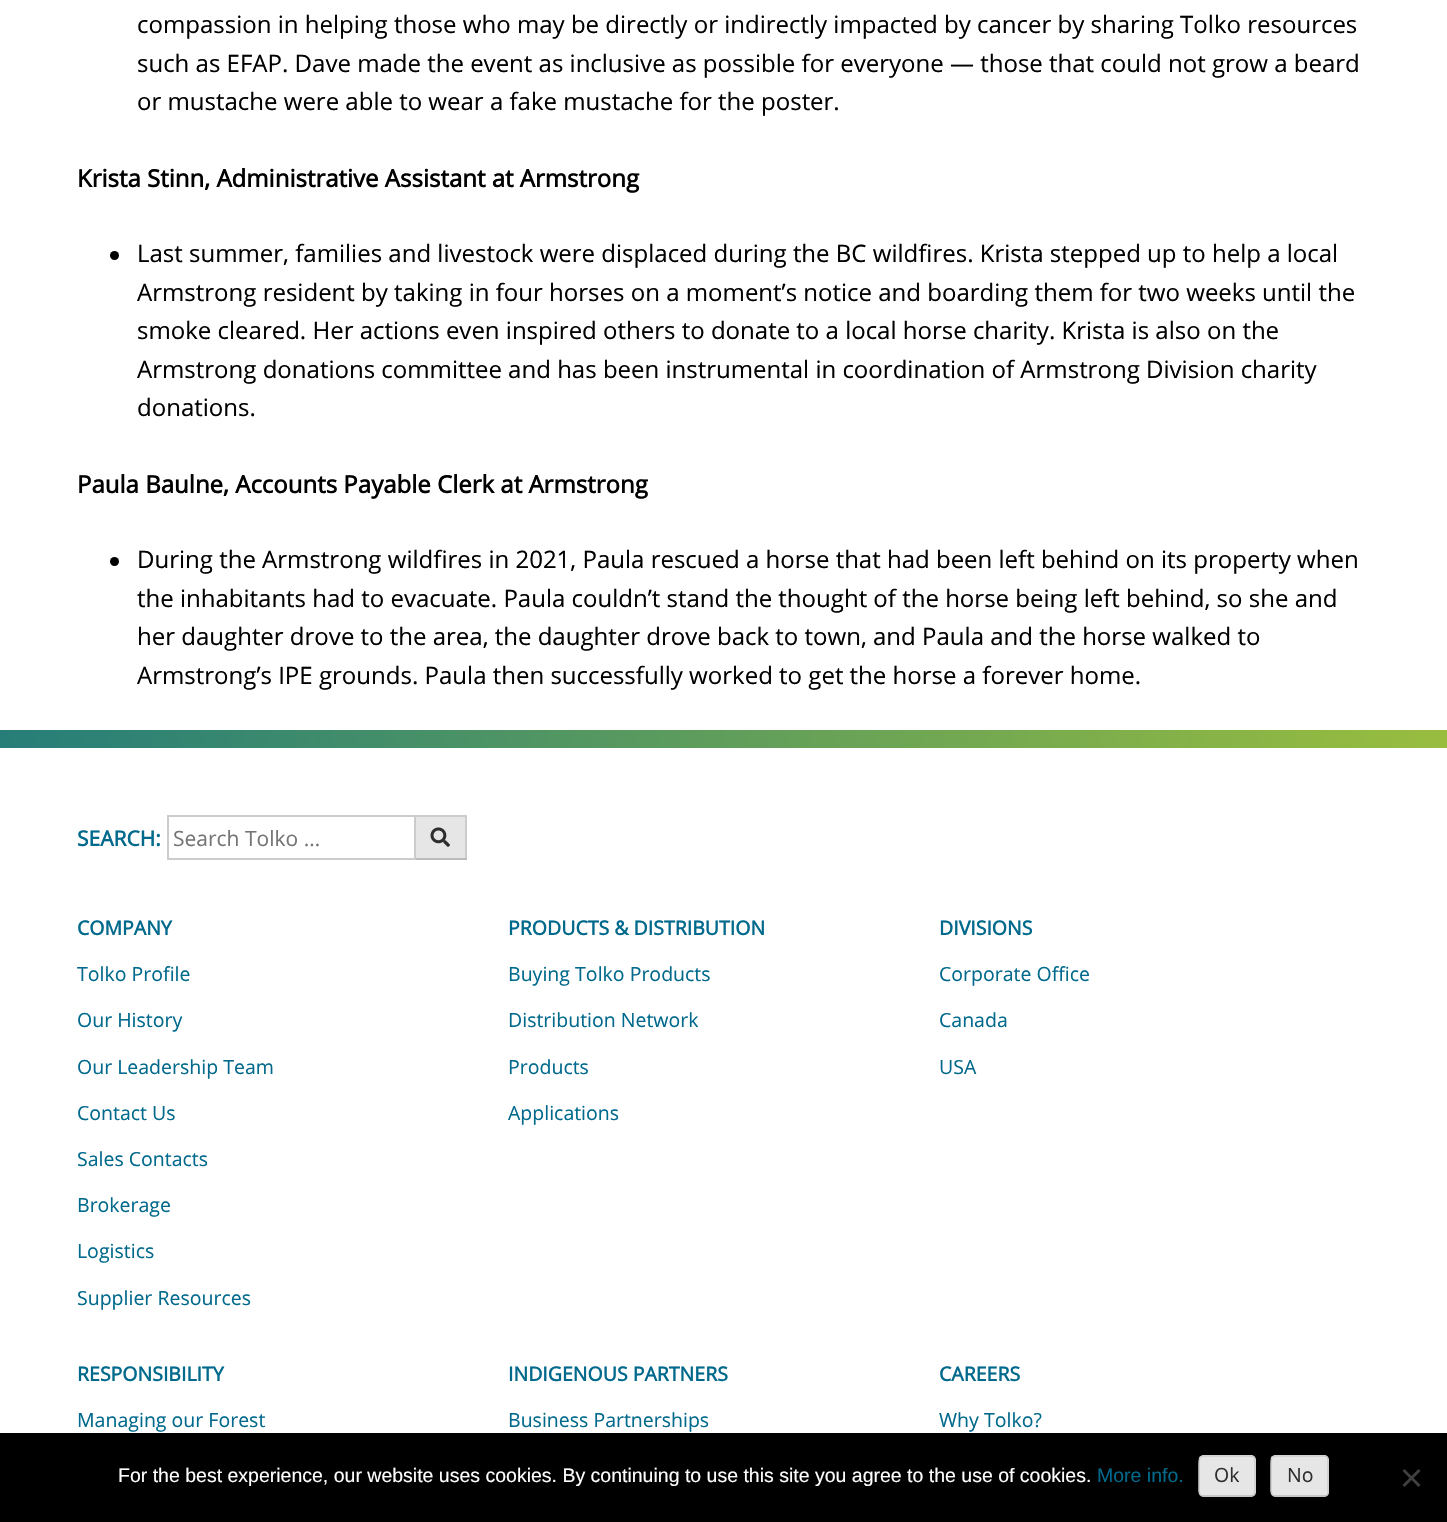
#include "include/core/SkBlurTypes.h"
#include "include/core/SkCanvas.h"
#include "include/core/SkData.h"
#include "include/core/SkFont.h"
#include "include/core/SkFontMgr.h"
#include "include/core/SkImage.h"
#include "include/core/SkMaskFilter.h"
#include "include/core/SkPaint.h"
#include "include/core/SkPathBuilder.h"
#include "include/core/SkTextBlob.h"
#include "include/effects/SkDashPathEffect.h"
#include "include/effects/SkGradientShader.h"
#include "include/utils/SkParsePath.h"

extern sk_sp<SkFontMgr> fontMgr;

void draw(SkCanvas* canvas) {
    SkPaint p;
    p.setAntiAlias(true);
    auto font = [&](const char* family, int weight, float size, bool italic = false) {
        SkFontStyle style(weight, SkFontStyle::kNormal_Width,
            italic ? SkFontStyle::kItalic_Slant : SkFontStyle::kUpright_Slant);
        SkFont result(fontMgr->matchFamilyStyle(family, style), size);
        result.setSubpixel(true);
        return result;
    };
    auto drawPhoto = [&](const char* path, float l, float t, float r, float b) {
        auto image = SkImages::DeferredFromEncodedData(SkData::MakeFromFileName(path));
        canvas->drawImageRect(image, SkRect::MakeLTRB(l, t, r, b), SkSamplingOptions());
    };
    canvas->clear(0xFFFFFFFF);
    auto font1 = font("Open Sans", 400, 24);
    p.setColor(0xFF000000);
    {
        const struct { const char* s; float x, y; } items[] = {
            {"compassion in helping those who may be directly or indirectly impacted by cancer by sharing Tolko resources", 137, 33},
            {"such as EFAP. Dave made the event as inclusive as possible for everyone — those that could not grow a beard", 137, 72},
            {"or mustache were able to wear a fake mustache for the poster.", 137, 110},
        };
        for (auto [s, x, y] : items) {
            canvas->drawString(s, x, y, font1, p);
        }
    }
    auto font2 = font("Open Sans", 700, 24);
    canvas->drawString("Krista Stinn, Administrative Assistant at Armstrong", 77, 187, font2, p);
    canvas->drawCircle(114.5f, 255.5f, 4.5f, p);
    {
        const struct { const char* s; float x, y; } items[] = {
            {"Last summer, families and livestock were displaced during the BC wildfires. Krista stepped up to help a local", 137, 262},
            {"Armstrong resident by taking in four horses on a moment’s notice and boarding them for two weeks until the", 137, 301},
            {"smoke cleared. Her actions even inspired others to donate to a local horse charity. Krista is also on the", 137, 339},
            {"Armstrong donations committee and has been instrumental in coordination of Armstrong Division charity", 137, 378},
            {"donations.", 137, 416},
        };
        for (auto [s, x, y] : items) {
            canvas->drawString(s, x, y, font1, p);
        }
    }
    canvas->drawString("Paula Baulne, Accounts Payable Clerk at Armstrong", 77, 493, font2, p);
    canvas->drawCircle(114.5f, 561.5f, 4.5f, p);
    {
        const struct { const char* s; float x, y; } items[] = {
            {"During the Armstrong wildfires in 2021, Paula rescued a horse that had been left behind on its property when", 137, 568},
            {"the inhabitants had to evacuate. Paula couldn’t stand the thought of the horse being left behind, so she and", 137, 607},
            {"her daughter drove to the area, the daughter drove back to town, and Paula and the horse walked to", 137, 645},
            {"Armstrong’s IPE grounds. Paula then successfully worked to get the horse a forever home.", 137, 684},
        };
        for (auto [s, x, y] : items) {
            canvas->drawString(s, x, y, font1, p);
        }
    }
    drawPhoto("media/1.png", 0, 730, 1447, 748);
    auto font3 = font("Open Sans", 700, 21);
    p.setColor(0xFF00698C);
    canvas->drawString("SEARCH:", 77, 846, font3, p);
    p.setStyle(SkPaint::kStroke_Style);
    p.setStrokeWidth(2);
    p.setColor(0xFFCCCCCC);
    canvas->drawRect(SkRect::MakeLTRB(168, 816, 415, 859), p);
    auto font4 = font("Open Sans", 400, 21);
    p.setStyle(SkPaint::kFill_Style);
    p.setColor(0xFF757575);
    canvas->drawString("Search Tolko …", 173, 846, font4, p);
    {
        const struct { float l, t, r, b; SkColor color; } items[] = {
            {416, 817, 465, 858, 0xFFE6E6E6},
            {414, 815, 467, 817, 0xFFCCCCCC},
            {465, 815, 467, 860, 0xFFCCCCCC},
            {414, 858, 467, 860, 0xFFBBBBBB},
            {414, 858, 416, 860, 0xFFCCCCCC},
        };
        for (auto [l, t, r, b, color] : items) {
            p.setColor(color);
            canvas->drawRect(SkRect::MakeLTRB(l, t, r, b), p);
        }
    }
    drawPhoto("media/2.png", 430, 827, 450, 847);
    auto font5 = font("Open Sans", 700, 19.5f);
    p.setColor(0xFF00698C);
    canvas->drawString("COMPANY", 77, 935, font5, p);
    auto font6 = font("Open Sans", 400, 19.5f);
    {
        const struct { const char* s; float x, y; } items[] = {
            {"Tolko Profile", 77, 981},
            {"Our History", 77, 1027},
            {"Our Leadership Team", 77, 1074},
            {"Contact Us", 77, 1120},
            {"Sales Contacts", 77, 1166},
            {"Brokerage", 77, 1212},
            {"Logistics", 77, 1258},
            {"Supplier Resources", 77, 1305},
        };
        for (auto [s, x, y] : items) {
            canvas->drawString(s, x, y, font6, p);
        }
    }
    canvas->drawString("PRODUCTS & DISTRIBUTION", 508, 935, font5, p);
    {
        const struct { const char* s; float x, y; } items[] = {
            {"Buying Tolko Products", 508, 981},
            {"Distribution Network", 508, 1027},
            {"Products", 508, 1074},
            {"Applications", 508, 1120},
        };
        for (auto [s, x, y] : items) {
            canvas->drawString(s, x, y, font6, p);
        }
    }
    canvas->drawString("DIVISIONS", 939, 935, font5, p);
    {
        const struct { const char* s; float x, y; } items[] = {
            {"Corporate Office", 939, 981},
            {"Canada", 939, 1027},
            {"USA", 939, 1074},
        };
        for (auto [s, x, y] : items) {
            canvas->drawString(s, x, y, font6, p);
        }
    }
    canvas->drawString("RESPONSIBILITY", 77, 1381, font5, p);
    canvas->drawString("Managing our Forest", 77, 1427, font6, p);
    canvas->drawString("INDIGENOUS PARTNERS", 508, 1381, font5, p);
    canvas->drawString("Business Partnerships", 508, 1427, font6, p);
    canvas->drawString("CAREERS", 939, 1381, font5, p);
    canvas->drawString("Why Tolko?", 939, 1427, font6, p);
    p.setColor(0xFF000000);
    canvas->drawRect(SkRect::MakeLTRB(0, 1433, 1447, 1522), p);
    auto font7 = font("Liberation Sans", 400, 19.5f);
    p.setColor(0xFFFFFFFF);
    canvas->drawString("For the best experience, our website uses cookies. By continuing to use this site you agree to the use of cookies.", 118, 1482, font7, p);
    p.setColor(0xFF00698C);
    canvas->drawString("More info.", 1097, 1482, font7, p);
    p.setColor(0xFFE6E6E6);
    canvas->drawRoundRect(SkRect::MakeLTRB(1199, 1455, 1256, 1497), 5, 5, p);
    p.setStyle(SkPaint::kStroke_Style);
    p.setStrokeWidth(1.5f);
    p.setColor(0xFFBBBBBB);
    canvas->drawPath(SkPathBuilder().moveTo(1253.5f, 1495).cubicTo(1253, 1496, 1252, 1496, 1251, 1496).lineTo(1203, 1496).cubicTo(1202, 1496, 1201, 1496, 1200.5f, 1495).detach(), p);
    p.setColor(0xFFCCCCCC);
    canvas->drawPath(SkPathBuilder().moveTo(1200.5f, 1495).cubicTo(1198.5f, 1493, 1199, 1489, 1199, 1487).lineTo(1199, 1465).cubicTo(1199, 1454.5f, 1200, 1456, 1211, 1456).lineTo(1243, 1456).cubicTo(1254, 1456, 1255, 1454.5f, 1255, 1465).lineTo(1255, 1487).cubicTo(1255, 1489, 1255.5f, 1493, 1253.5f, 1495).detach(), p);
    p.setStyle(SkPaint::kFill_Style);
    p.setColor(0xFF2E2E2E);
    canvas->drawString("Ok", 1214, 1482, font6, p);
    p.setColor(0xFFE6E6E6);
    canvas->drawRoundRect(SkRect::MakeLTRB(1271, 1455, 1329, 1497), 5, 5, p);
    p.setStyle(SkPaint::kStroke_Style);
    p.setColor(0xFFBBBBBB);
    canvas->drawPath(SkPathBuilder().moveTo(1327, 1495).cubicTo(1326.5f, 1496, 1325.5f, 1496, 1324.5f, 1496).lineTo(1275, 1496).cubicTo(1274, 1496, 1273, 1496, 1272.5f, 1495).detach(), p);
    p.setColor(0xFFCCCCCC);
    canvas->drawPath(SkPathBuilder().moveTo(1272.5f, 1495).cubicTo(1270.5f, 1493, 1271, 1489, 1271, 1487).lineTo(1271, 1465).cubicTo(1271, 1454, 1272, 1456, 1283, 1456).lineTo(1316, 1456).cubicTo(1327.5f, 1456, 1328, 1454, 1328, 1465).lineTo(1328, 1487).cubicTo(1328, 1489, 1329, 1493, 1327, 1495).detach(), p);
    p.setStyle(SkPaint::kFill_Style);
    p.setColor(0xFF2E2E2E);
    canvas->drawString("No", 1287, 1482, font6, p);
    p.setColor(0xFF404040);
    canvas->drawPath(SkPathBuilder().moveTo(1418.5f, 1469).lineTo(1420.5f, 1471).lineTo(1404.5f, 1487).lineTo(1402.5f, 1485).close().detach(), p);
    canvas->drawPath(SkPathBuilder().moveTo(1402.5f, 1471).lineTo(1404.5f, 1469).lineTo(1420.5f, 1485).lineTo(1418.5f, 1487).close().detach(), p);
}
